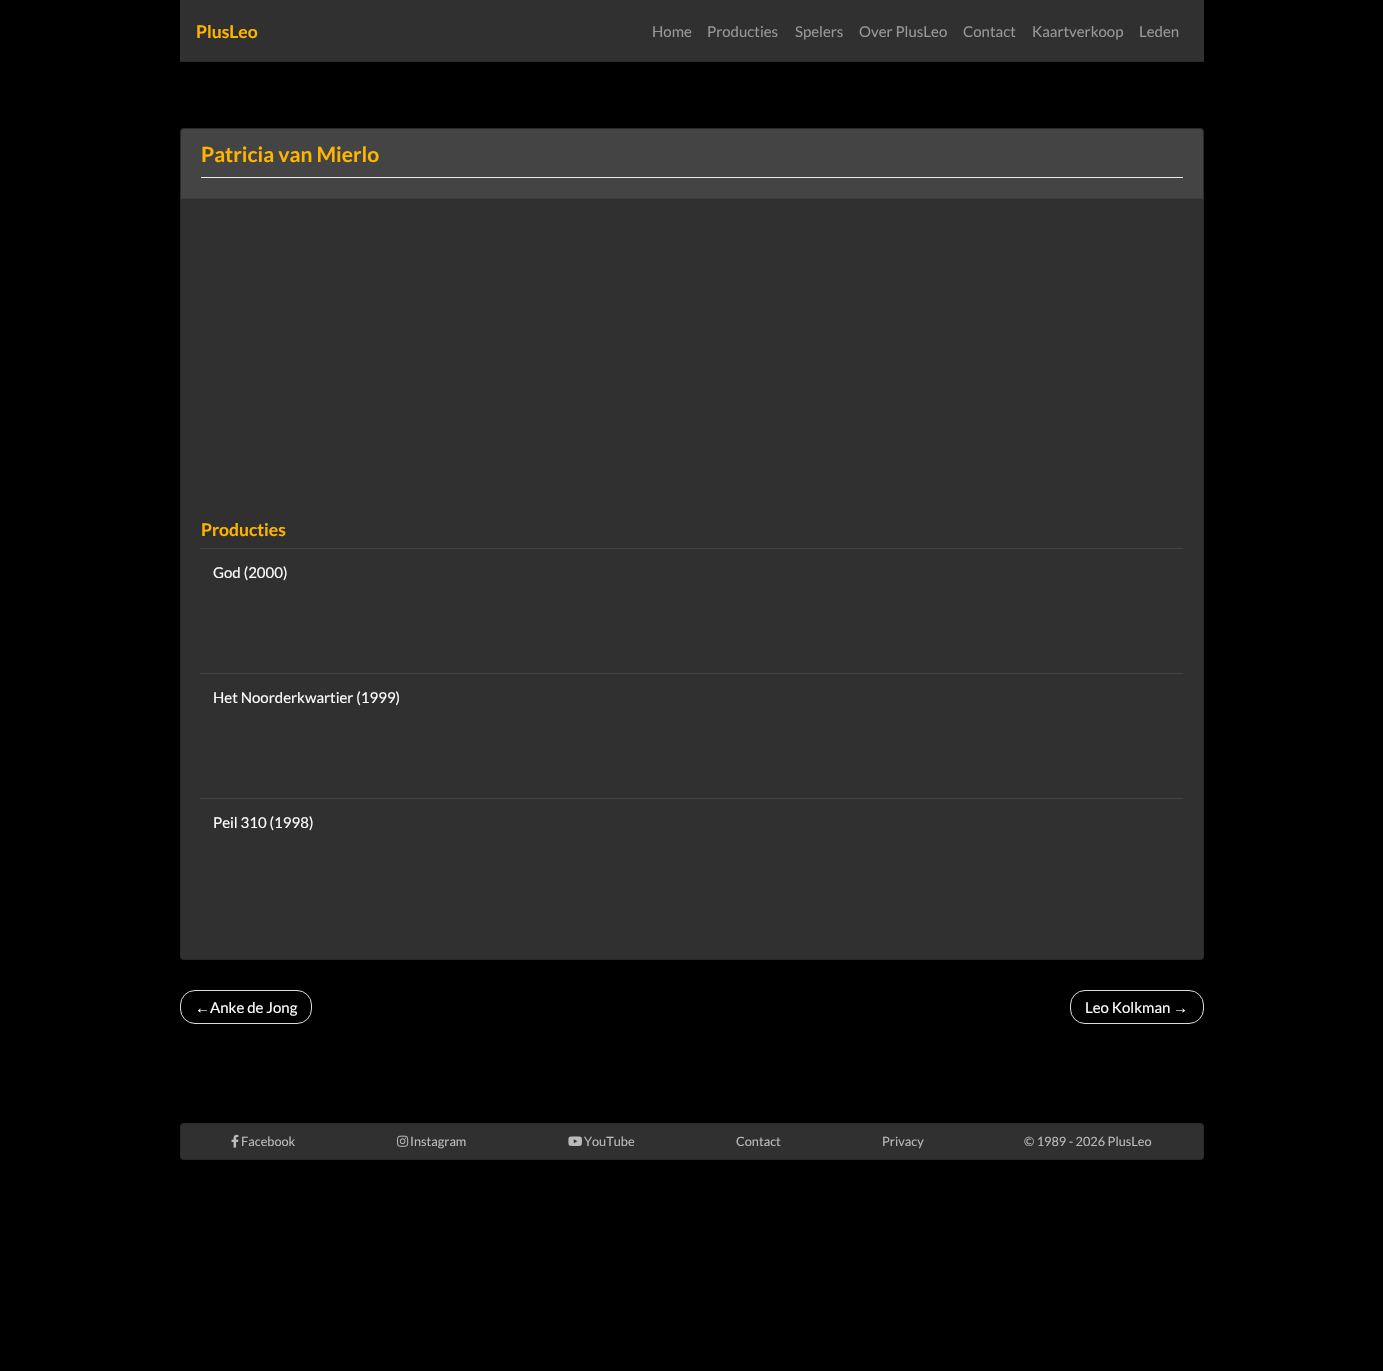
#include "include/core/SkBlurTypes.h"
#include "include/core/SkCanvas.h"
#include "include/core/SkData.h"
#include "include/core/SkFont.h"
#include "include/core/SkFontMgr.h"
#include "include/core/SkImage.h"
#include "include/core/SkMaskFilter.h"
#include "include/core/SkPaint.h"
#include "include/core/SkPathBuilder.h"
#include "include/core/SkTextBlob.h"
#include "include/effects/SkDashPathEffect.h"
#include "include/effects/SkGradientShader.h"
#include "include/utils/SkParsePath.h"

extern sk_sp<SkFontMgr> fontMgr;

void draw(SkCanvas* canvas) {
    SkPaint p;
    p.setAntiAlias(true);
    auto font = [&](const char* family, int weight, float size, bool italic = false) {
        SkFontStyle style(weight, SkFontStyle::kNormal_Width,
            italic ? SkFontStyle::kItalic_Slant : SkFontStyle::kUpright_Slant);
        SkFont result(fontMgr->matchFamilyStyle(family, style), size);
        result.setSubpixel(true);
        return result;
    };
    auto drawPhoto = [&](const char* path, float l, float t, float r, float b) {
        auto image = SkImages::DeferredFromEncodedData(SkData::MakeFromFileName(path));
        canvas->drawImageRect(image, SkRect::MakeLTRB(l, t, r, b), SkSamplingOptions());
    };
    canvas->clear(0xFF000000);
    p.setColor(0xFF303030);
    canvas->drawRect(SkRect::MakeLTRB(180, 0, 1204, 61), p);
    p.setColor(0xFF2B2B2B);
    canvas->drawRect(SkRect::MakeLTRB(180, 61, 1204, 62), p);
    auto font1 = font("Lato", 700, 17.5f);
    p.setColor(0xFFFFB400);
    canvas->drawString("PlusLeo", 196, 38, font1, p);
    auto font2 = font("Lato", 400, 15);
    p.setColor(0xFF989898);
    {
        const struct { const char* s; float x, y; } items[] = {
            {"Home", 652, 37},
            {"Producties", 707, 37},
            {"Spelers", 795, 37},
            {"Over PlusLeo", 859, 37},
            {"Contact", 963, 37},
            {"Kaartverkoop", 1032, 37},
            {"Leden", 1139, 37},
        };
        for (auto [s, x, y] : items) {
            canvas->drawString(s, x, y, font2, p);
        }
    }
    p.setColor(0xFF303030);
    canvas->drawRoundRect(SkRect::MakeLTRB(180, 128, 1204, 960), 4, 4, p);
    p.setStyle(SkPaint::kStroke_Style);
    p.setStrokeWidth(1);
    p.setColor(0x1F000000);
    canvas->drawRoundRect(SkRect::MakeLTRB(180.5f, 128.5f, 1203.5f, 959.5f), 3.5f, 3.5f, p);
    p.setStyle(SkPaint::kFill_Style);
    p.setColor(0xFF444444);
    canvas->drawPath(SkPathBuilder().moveTo(184, 129).lineTo(1200, 129).cubicTo(1201.5f, 129, 1203, 130.5f, 1203, 132).lineTo(1203, 199).lineTo(181, 199).lineTo(181, 132).cubicTo(181, 130.5f, 182.5f, 129, 184, 129).close().detach(), p);
    p.setColor(0xFF3C3C3C);
    canvas->drawRect(SkRect::MakeLTRB(181, 198, 1203, 199), p);
    p.setColor(0xFFEAECEF);
    canvas->drawRect(SkRect::MakeLTRB(201, 177, 1183, 178), p);
    auto font3 = font("Lato", 700, 21);
    p.setColor(0xFFFFB400);
    canvas->drawString("Patricia van Mierlo", 201, 162, font3, p);
    canvas->drawString("Producties", 201, 536, font1, p);
    p.setColor(0xFF444444);
    canvas->drawRect(SkRect::MakeLTRB(200, 548, 1183, 549), p);
    p.setColor(0xFFFFFFFF);
    canvas->drawString("God (2000)", 213, 578, font2, p);
    p.setColor(0xFF444444);
    canvas->drawRect(SkRect::MakeLTRB(200, 673, 1183, 674), p);
    p.setColor(0xFFFFFFFF);
    canvas->drawString("Het Noorderkwartier (1999)", 213, 703, font2, p);
    p.setColor(0xFF444444);
    canvas->drawRect(SkRect::MakeLTRB(200, 798, 1183, 799), p);
    p.setColor(0xFFFFFFFF);
    canvas->drawString("Peil 310 (1998)", 213, 828, font2, p);
    p.setStyle(SkPaint::kStroke_Style);
    p.setColor(0xFFDDDDDD);
    canvas->drawRoundRect(SkRect::MakeLTRB(180.5f, 990.5f, 311.5f, 1023.5f), 14.5f, 14.5f, p);
    auto font4 = font("Liberation Sans", 400, 15);
    p.setStyle(SkPaint::kFill_Style);
    p.setColor(0xFFFFFFFF);
    canvas->drawString("←", 195, 1013, font4, p);
    canvas->drawString("Anke de Jong", 210, 1013, font2, p);
    p.setStyle(SkPaint::kStroke_Style);
    p.setColor(0xFFDDDDDD);
    canvas->drawRoundRect(SkRect::MakeLTRB(1070.5f, 990.5f, 1203.5f, 1023.5f), 14.5f, 14.5f, p);
    p.setStyle(SkPaint::kFill_Style);
    p.setColor(0xFFFFFFFF);
    canvas->drawString("Leo Kolkman", 1085, 1013, font2, p);
    canvas->drawString("→", 1173, 1013, font4, p);
    p.setColor(0xFF303030);
    canvas->drawRoundRect(SkRect::MakeLTRB(180, 1123, 1204, 1160), 4, 4, p);
    p.setStyle(SkPaint::kStroke_Style);
    p.setColor(0x1F000000);
    canvas->drawRoundRect(SkRect::MakeLTRB(180.5f, 1123.5f, 1203.5f, 1159.5f), 3.5f, 3.5f, p);
    drawPhoto("media/1.png", 231, 1134, 239, 1148);
    auto font5 = font("Lato", 400, 12.75f);
    p.setStyle(SkPaint::kFill_Style);
    p.setColor(0xFFBBBBBB);
    canvas->drawString("Facebook", 241, 1146, font5, p);
    drawPhoto("media/2.png", 397, 1135, 409, 1147);
    canvas->drawString("Instagram", 410, 1146, font5, p);
    drawPhoto("media/3.png", 568, 1136, 582, 1146);
    {
        const struct { const char* s; float x, y; } items[] = {
            {"YouTube", 584, 1146},
            {"Contact", 736, 1146},
            {"Privacy", 882, 1146},
            {"© 1989 - 2026 PlusLeo", 1024, 1146},
        };
        for (auto [s, x, y] : items) {
            canvas->drawString(s, x, y, font5, p);
        }
    }
}
